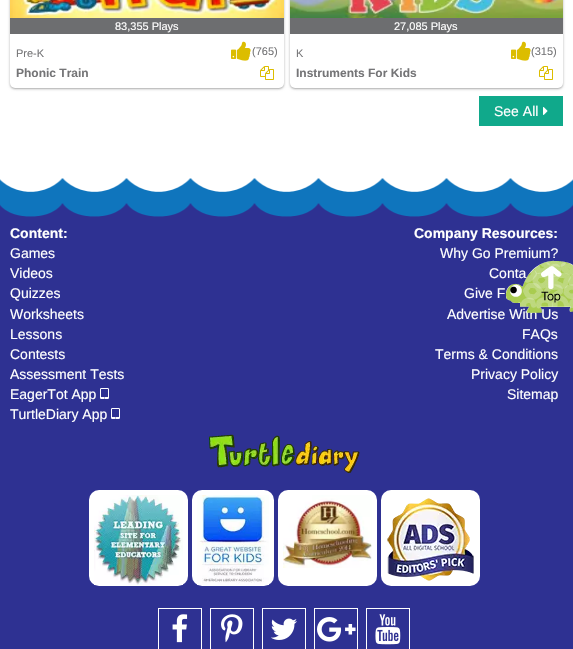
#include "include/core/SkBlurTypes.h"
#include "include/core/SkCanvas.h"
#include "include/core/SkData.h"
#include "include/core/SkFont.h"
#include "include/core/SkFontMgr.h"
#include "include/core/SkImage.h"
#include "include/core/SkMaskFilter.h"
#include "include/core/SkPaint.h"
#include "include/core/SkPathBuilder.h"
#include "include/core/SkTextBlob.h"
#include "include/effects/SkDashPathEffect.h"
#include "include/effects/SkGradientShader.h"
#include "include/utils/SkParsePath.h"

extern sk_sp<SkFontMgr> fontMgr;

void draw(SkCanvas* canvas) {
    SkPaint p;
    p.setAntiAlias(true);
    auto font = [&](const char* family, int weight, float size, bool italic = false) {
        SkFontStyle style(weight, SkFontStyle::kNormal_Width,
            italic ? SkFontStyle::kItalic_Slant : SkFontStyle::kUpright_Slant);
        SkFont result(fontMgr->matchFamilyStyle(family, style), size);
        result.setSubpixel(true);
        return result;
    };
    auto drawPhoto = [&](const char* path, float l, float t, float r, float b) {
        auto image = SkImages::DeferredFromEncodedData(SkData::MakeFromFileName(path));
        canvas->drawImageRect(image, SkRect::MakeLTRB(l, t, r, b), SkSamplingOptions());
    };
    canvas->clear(0xFFFFFFFF);
    p.setColor(0x3D000000);
    p.setMaskFilter(SkMaskFilter::MakeBlur(kNormal_SkBlurStyle, 1));
    canvas->drawRoundRect(SkRect::MakeLTRB(10, -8, 284, 89), 5, 5, p);
    p.setMaskFilter(nullptr);
    p.setColor(0x1F000000);
    p.setMaskFilter(SkMaskFilter::MakeBlur(kNormal_SkBlurStyle, 1.5f));
    canvas->drawRoundRect(SkRect::MakeLTRB(10, -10, 284, 89), 5, 5, p);
    p.setMaskFilter(nullptr);
    p.setColor(0xFFFFFFFF);
    canvas->drawRoundRect(SkRect::MakeLTRB(10, -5, 284, 88), 5, 5, p);
    drawPhoto("media/1.png", 10, 0, 284, 18);
    p.setColor(0xFF6D6E70);
    canvas->drawRect(SkRect::MakeLTRB(10, 18, 284, 34), p);
    auto font1 = font("Liberation Sans", 400, 11);
    p.setColor(0xFFFFFFFF);
    canvas->drawString("83,355 Plays", 115, 30, font1, p);
    p.setColor(0xFF757577);
    canvas->drawString("Pre-K", 16, 57, font1, p);
    drawPhoto("media/2.png", 231, 41, 251, 61);
    canvas->drawString("(765)", 252, 55, font1, p);
    auto font2 = font("Liberation Sans", 700, 12);
    canvas->drawString("Phonic Train", 16, 77, font2, p);
    drawPhoto("media/3.png", 260, 66, 274, 80);
    p.setColor(0x3D000000);
    p.setMaskFilter(SkMaskFilter::MakeBlur(kNormal_SkBlurStyle, 1));
    canvas->drawRoundRect(SkRect::MakeLTRB(290, -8, 563, 89), 5, 5, p);
    p.setMaskFilter(nullptr);
    p.setColor(0x1F000000);
    p.setMaskFilter(SkMaskFilter::MakeBlur(kNormal_SkBlurStyle, 1.5f));
    canvas->drawRoundRect(SkRect::MakeLTRB(290, -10, 563, 89), 5, 5, p);
    p.setMaskFilter(nullptr);
    p.setColor(0xFFFFFFFF);
    canvas->drawRoundRect(SkRect::MakeLTRB(290, -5, 563, 88), 5, 5, p);
    drawPhoto("media/4.png", 290, 0, 563, 18);
    p.setColor(0xFF6D6E70);
    canvas->drawRect(SkRect::MakeLTRB(290, 18, 563, 34), p);
    p.setColor(0xFFFFFFFF);
    canvas->drawString("27,085 Plays", 394, 30, font1, p);
    p.setColor(0xFF757577);
    canvas->drawString("K", 296, 57, font1, p);
    drawPhoto("media/2.png", 511, 41, 531, 61);
    canvas->drawString("(315)", 531, 55, font1, p);
    canvas->drawString("Instruments For Kids", 296, 77, font2, p);
    drawPhoto("media/3.png", 539, 66, 553, 80);
    p.setColor(0xFF10A98B);
    canvas->drawRect(SkRect::MakeLTRB(479, 96, 563, 126), p);
    auto font3 = font("Liberation Sans", 400, 14);
    p.setColor(0xFFFFFFFF);
    canvas->drawString("See All", 494, 116, font3, p);
    drawPhoto("media/5.png", 543, 107, 548, 115);
    p.setColor(0xFF2E3192);
    canvas->drawRect(SkRect::MakeLTRB(0, 203, 573, 649), p);
    drawPhoto("media/6.png", 0, 178, 573, 217);
    auto font4 = font("Liberation Sans", 700, 14);
    p.setColor(0xFFFFFFFF);
    canvas->drawString("Content:", 10, 238, font4, p);
    {
        const struct { const char* s; float x, y; } items[] = {
            {"Games", 10, 258},
            {"Videos", 10, 278},
            {"Quizzes", 10, 298},
            {"Worksheets", 10, 319},
            {"Lessons", 10, 339},
            {"Contests", 10, 359},
            {"Assessment Tests", 10, 379},
            {"EagerTot App", 10, 399},
        };
        for (auto [s, x, y] : items) {
            canvas->drawString(s, x, y, font3, p);
        }
    }
    drawPhoto("media/7.png", 100, 388, 109, 399);
    canvas->drawString("TurtleDiary App", 10, 419, font3, p);
    drawPhoto("media/7.png", 111, 408, 120, 419);
    canvas->drawString("Company Resources:", 414, 238, font4, p);
    {
        const struct { const char* s; float x, y; } items[] = {
            {"Why Go Premium?", 440, 258},
            {"Conta", 489, 278},
            {"Give F", 464, 298},
            {"Advertise With Us", 447, 319},
            {"FAQs", 522, 339},
            {"Terms & Conditions", 435, 359},
            {"Privacy Policy", 471, 379},
            {"Sitemap", 507, 399},
        };
        for (auto [s, x, y] : items) {
            canvas->drawString(s, x, y, font3, p);
        }
    }
    drawPhoto("media/8.png", 209, 434, 360, 473);
    canvas->drawRoundRect(SkRect::MakeLTRB(89, 490, 188, 586), 10, 10, p);
    drawPhoto("media/9.png", 94, 495, 183, 585);
    canvas->drawRoundRect(SkRect::MakeLTRB(192, 490, 274, 586), 10, 10, p);
    drawPhoto("media/10.png", 197, 495, 269, 585);
    canvas->drawRoundRect(SkRect::MakeLTRB(278, 490, 377, 586), 10, 10, p);
    drawPhoto("media/11.png", 283, 495, 372, 568);
    canvas->drawRoundRect(SkRect::MakeLTRB(381, 490, 480, 586), 10, 10, p);
    drawPhoto("media/12.png", 387, 498, 474, 581);
    p.setStyle(SkPaint::kStroke_Style);
    p.setStrokeWidth(1);
    canvas->drawRect(SkRect::MakeLTRB(158.5f, 608.5f, 201.5f, 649.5f), p);
    drawPhoto("media/13.png", 172, 614, 188, 643);
    canvas->drawRect(SkRect::MakeLTRB(210.5f, 608.5f, 253.5f, 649.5f), p);
    drawPhoto("media/14.png", 221, 614, 243, 643);
    canvas->drawRect(SkRect::MakeLTRB(262.5f, 608.5f, 305.5f, 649.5f), p);
    drawPhoto("media/15.png", 271, 618, 297, 640);
    canvas->drawRect(SkRect::MakeLTRB(314.5f, 608.5f, 357.5f, 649.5f), p);
    drawPhoto("media/16.png", 317, 617, 356, 642);
    canvas->drawRect(SkRect::MakeLTRB(366.5f, 608.5f, 409.5f, 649.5f), p);
    drawPhoto("media/17.png", 375, 614, 401, 645);
    drawPhoto("media/18.png", 506, 260, 573, 313);
}
